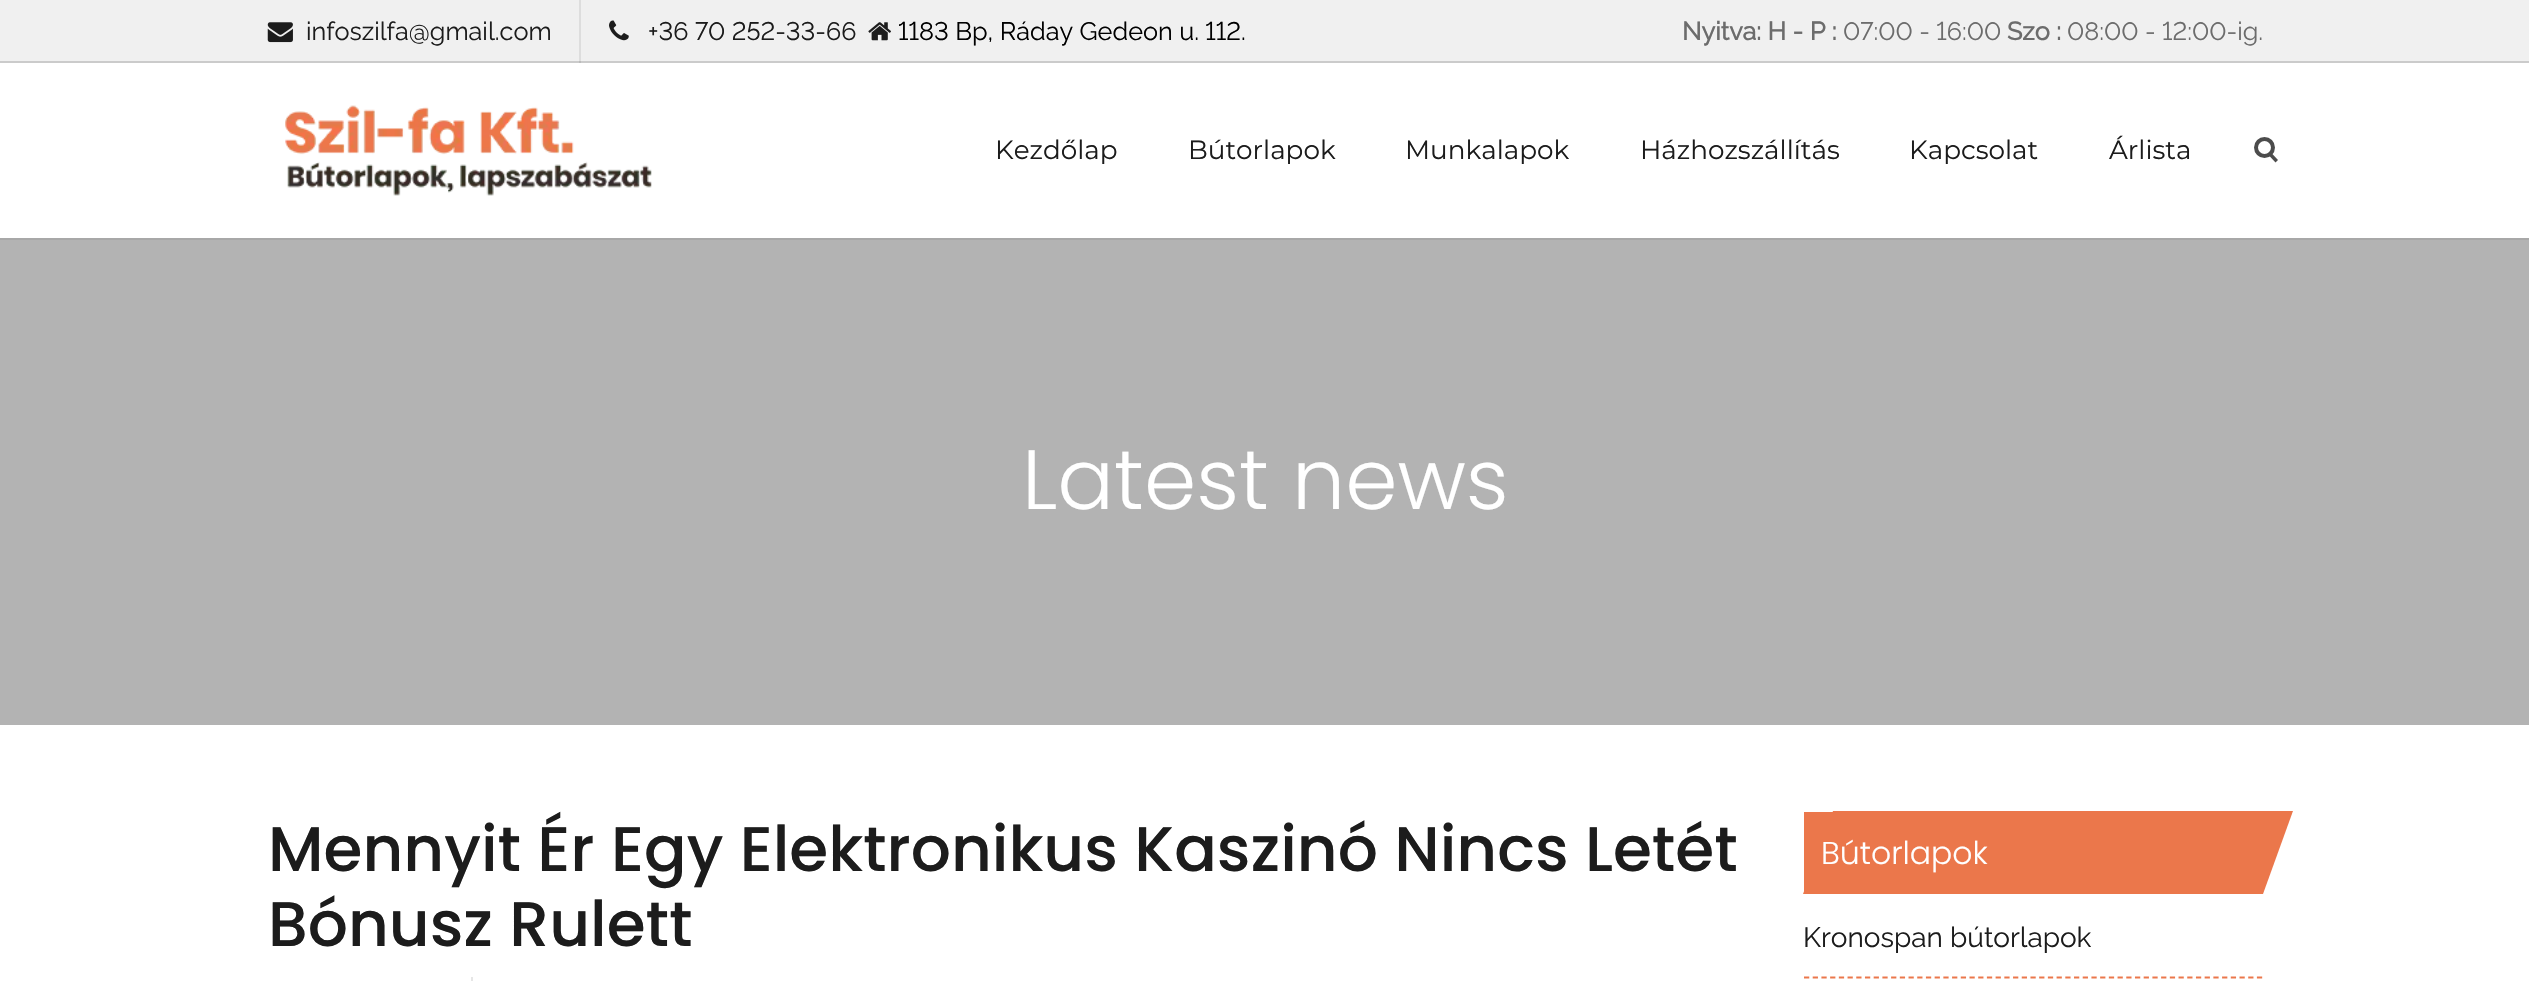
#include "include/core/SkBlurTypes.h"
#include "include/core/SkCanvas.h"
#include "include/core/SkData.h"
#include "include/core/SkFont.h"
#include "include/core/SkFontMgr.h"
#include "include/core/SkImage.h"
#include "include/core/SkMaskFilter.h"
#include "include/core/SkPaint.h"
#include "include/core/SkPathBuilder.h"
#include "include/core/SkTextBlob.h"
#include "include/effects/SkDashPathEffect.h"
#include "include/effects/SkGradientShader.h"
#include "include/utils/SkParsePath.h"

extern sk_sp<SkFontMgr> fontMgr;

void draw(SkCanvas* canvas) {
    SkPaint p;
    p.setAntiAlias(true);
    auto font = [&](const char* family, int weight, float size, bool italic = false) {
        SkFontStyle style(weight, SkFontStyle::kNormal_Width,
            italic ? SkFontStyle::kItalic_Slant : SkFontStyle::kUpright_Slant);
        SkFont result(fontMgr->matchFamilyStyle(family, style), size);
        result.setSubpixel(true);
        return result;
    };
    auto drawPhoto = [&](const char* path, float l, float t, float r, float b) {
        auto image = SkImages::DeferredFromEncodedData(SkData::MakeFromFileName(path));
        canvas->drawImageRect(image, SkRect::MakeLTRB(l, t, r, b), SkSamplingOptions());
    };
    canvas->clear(0xFFFFFFFF);
    {
        const struct { float l, t, r, b; SkColor color; } items[] = {
            {0, 0, 2529, 61, 0xFFF0F0F0},
            {579, 0, 581, 63, 0xFFDDDDDD},
            {0, 61, 2529, 63, 0xFFD8D8D8},
            {579, 61, 581, 63, 0xFFC7C7C7},
        };
        for (auto [l, t, r, b, color] : items) {
            p.setColor(color);
            canvas->drawRect(SkRect::MakeLTRB(l, t, r, b), p);
        }
    }
    drawPhoto("media/1.png", 267, 22, 293, 43);
    auto font1 = font("Raleway", 100, 25.25f);
    p.setColor(0xFF1C1C1C);
    canvas->drawString("infoszilfa@gmail.com", 306, 40, font1, p);
    drawPhoto("media/2.png", 609, 20, 629, 41);
    auto font2 = font("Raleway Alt", 100, 25.25f);
    canvas->drawString("+36 70 252-33-66", 648, 40, font2, p);
    drawPhoto("media/3.png", 868, 22, 891, 41);
    p.setColor(0xFF000000);
    canvas->drawString("1183 Bp, Ráday Gedeon u. 112.", 898, 40, font2, p);
    auto font3 = font("Raleway", 700, 25.25f);
    p.setColor(0xFF6C6C6C);
    canvas->drawString("Nyitva: H - P :", 1682, 40, font3, p);
    canvas->drawString("07:00 - 16:00", 1843, 40, font2, p);
    canvas->drawString("Szo :", 2007, 40, font3, p);
    canvas->drawString("08:00 - 12:00-ig.", 2067, 40, font2, p);
    p.setColor(0x0F000000);
    canvas->drawPath(SkPathBuilder().moveTo(0, 61).lineTo(0, 63).lineTo(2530, 63).lineTo(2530, 236).lineTo(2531, 236).lineTo(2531, 61).close().detach(), p);
    p.setColor(0xFFA8A8A8);
    canvas->drawPath(SkPathBuilder().moveTo(0, 238).lineTo(0, 240).lineTo(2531, 240).lineTo(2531, 65).lineTo(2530, 65).lineTo(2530, 238).close().detach(), p);
    drawPhoto("media/4.png", 285, 105, 652, 196);
    auto font4 = font("Montserrat", 100, 26.25f);
    p.setColor(0xFF1C1C1C);
    {
        const struct { const char* s; float x, y; } items[] = {
            {"Kezdőlap", 995, 159},
            {"Bútorlapok", 1188, 159},
            {"Munkalapok", 1405, 159},
            {"Házhozszállítás", 1640, 159},
            {"Kapcsolat", 1909, 159},
            {"Árlista", 2109, 159},
        };
        for (auto [s, x, y] : items) {
            canvas->drawString(s, x, y, font4, p);
        }
    }
    p.setStyle(SkPaint::kStroke_Style);
    p.setStrokeWidth(4);
    p.setColor(0xFF4C4C4C);
    canvas->drawCircle(2264.5f, 147.5f, 8.5f, p);
    p.setStyle(SkPaint::kFill_Style);
    canvas->drawPath(SkPathBuilder().moveTo(2268.5f, 155).lineTo(2271, 152.5f).lineTo(2278, 160).lineTo(2275.5f, 162.5f).close().detach(), p);
    p.setColor(0xFFB3B3B3);
    canvas->drawRect(SkRect::MakeLTRB(0, 240, 2529, 725), p);
    auto font5 = font("Poppins", 300, 84);
    p.setColor(0xFFFFFFFF);
    canvas->drawString("Latest news", 1022, 509, font5, p);
    auto font6 = font("Poppins", 500, 63);
    p.setColor(0xFF1C1C1C);
    canvas->drawString("Mennyit Ér Egy Elektronikus Kaszinó Nincs Letét", 268, 871, font6, p);
    canvas->drawString("Bónusz Rulett", 268, 946, font6, p);
    p.setColor(0xFFE6E6E6);
    canvas->drawRect(SkRect::MakeLTRB(471, 977, 473, 981), p);
    p.setColor(0xFFEB774B);
    canvas->drawPath(SkPathBuilder().moveTo(1833, 811).lineTo(2293, 811).lineTo(2263, 894).lineTo(1803, 894).close().detach(), p);
    canvas->drawRect(SkRect::MakeLTRB(1804, 812, 1833, 891), p);
    auto font7 = font("Poppins", 300, 31.5f);
    p.setColor(0xFFFFFFFF);
    canvas->drawString("Bútorlapok", 1821, 864, font7, p);
    p.setStyle(SkPaint::kStroke_Style);
    p.setStrokeWidth(1.8f);
    p.setColor(0xFFEB774B);
    p.setPathEffect(SkDashPathEffect::Make({{5.25f, 3.46f}}, 0));
    canvas->drawPath(SkPathBuilder().moveTo(1804, 977.5f).lineTo(2263, 977.5f).detach(), p);
    p.setPathEffect(nullptr);
    auto font8 = font("Raleway", 100, 28);
    p.setStyle(SkPaint::kFill_Style);
    p.setColor(0xFF1C1C1C);
    canvas->drawString("Kronospan bútorlapok", 1803, 947, font8, p);
}
